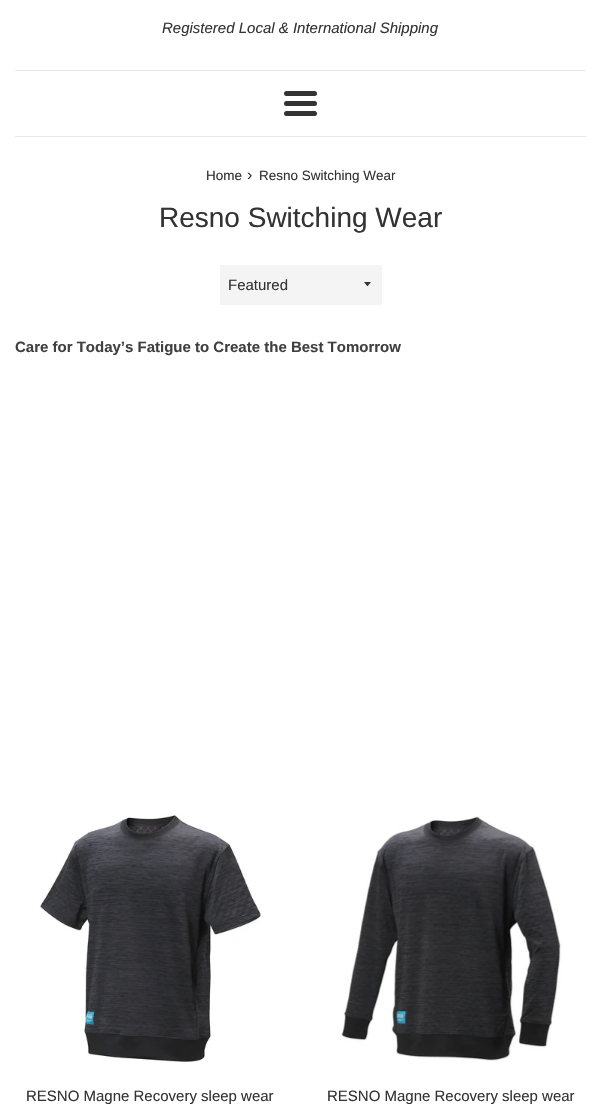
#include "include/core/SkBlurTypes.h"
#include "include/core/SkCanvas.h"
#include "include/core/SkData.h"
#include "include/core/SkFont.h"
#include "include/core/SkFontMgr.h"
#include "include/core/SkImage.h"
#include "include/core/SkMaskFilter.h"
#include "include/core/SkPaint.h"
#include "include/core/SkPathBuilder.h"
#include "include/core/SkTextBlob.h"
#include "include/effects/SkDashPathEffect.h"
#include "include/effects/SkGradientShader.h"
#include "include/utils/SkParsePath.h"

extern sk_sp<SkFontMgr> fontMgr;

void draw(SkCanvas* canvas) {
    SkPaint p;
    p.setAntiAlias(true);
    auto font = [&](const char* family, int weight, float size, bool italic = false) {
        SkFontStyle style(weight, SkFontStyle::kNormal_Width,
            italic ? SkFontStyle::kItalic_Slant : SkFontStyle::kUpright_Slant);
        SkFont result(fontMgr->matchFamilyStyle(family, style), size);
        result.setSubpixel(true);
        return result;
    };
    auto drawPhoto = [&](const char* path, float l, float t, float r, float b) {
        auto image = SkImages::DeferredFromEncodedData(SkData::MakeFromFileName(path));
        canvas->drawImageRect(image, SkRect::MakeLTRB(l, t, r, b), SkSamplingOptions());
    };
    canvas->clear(0xFFFFFFFF);
    auto font1 = font("Liberation Sans", 400, 15, true);
    p.setColor(0xFF333333);
    canvas->drawString("Registered Local & International Shipping", 162, 33, font1, p);
    p.setColor(0xFFE8E8E8);
    canvas->drawRect(SkRect::MakeLTRB(15, 70, 586, 71), p);
    p.setColor(0xFF333333);
    canvas->drawRoundRect(SkRect::MakeLTRB(284, 91, 317, 96), 2.5f, 2.5f, p);
    canvas->drawRoundRect(SkRect::MakeLTRB(284, 101, 317, 106), 2.5f, 2.5f, p);
    canvas->drawRoundRect(SkRect::MakeLTRB(284, 111, 317, 116), 2.5f, 2.5f, p);
    p.setColor(0xFFE8E8E8);
    canvas->drawRect(SkRect::MakeLTRB(15, 136, 586, 137), p);
    auto font2 = font("Liberation Sans", 400, 13.5f);
    p.setColor(0xFF333333);
    canvas->drawString("Home", 206, 180, font2, p);
    auto font3 = font("Liberation Sans", 400, 16);
    canvas->drawString("›", 247, 180, font3, p);
    canvas->drawString("Resno Switching Wear", 259, 180, font2, p);
    auto font4 = font("Liberation Sans", 400, 28);
    canvas->drawString("Resno Switching Wear", 159, 227, font4, p);
    p.setColor(0xFFF4F4F4);
    canvas->drawRect(SkRect::MakeLTRB(220, 265, 382, 305), p);
    p.setColor(0xFF333333);
    canvas->drawPath(SkPathBuilder().moveTo(364, 282).cubicTo(368.5f, 287.5f, 366.5f, 287.5f, 371, 282).close().detach(), p);
    auto font5 = font("Liberation Sans", 400, 15);
    canvas->drawString("Featured", 228, 290, font5, p);
    auto font6 = font("Liberation Sans", 700, 15);
    p.setColor(0xFF404040);
    canvas->drawString("Care for Today’s Fatigue to Create the Best Tomorrow", 15, 352, font6, p);
    drawPhoto("media/1.png", 39, 815, 262, 1062);
    p.setColor(0xFF333333);
    canvas->drawString("RESNO Magne Recovery sleep wear", 26, 1101, font5, p);
    drawPhoto("media/2.png", 341, 816, 562, 1061);
    canvas->drawString("RESNO Magne Recovery sleep wear", 327, 1101, font5, p);
}
